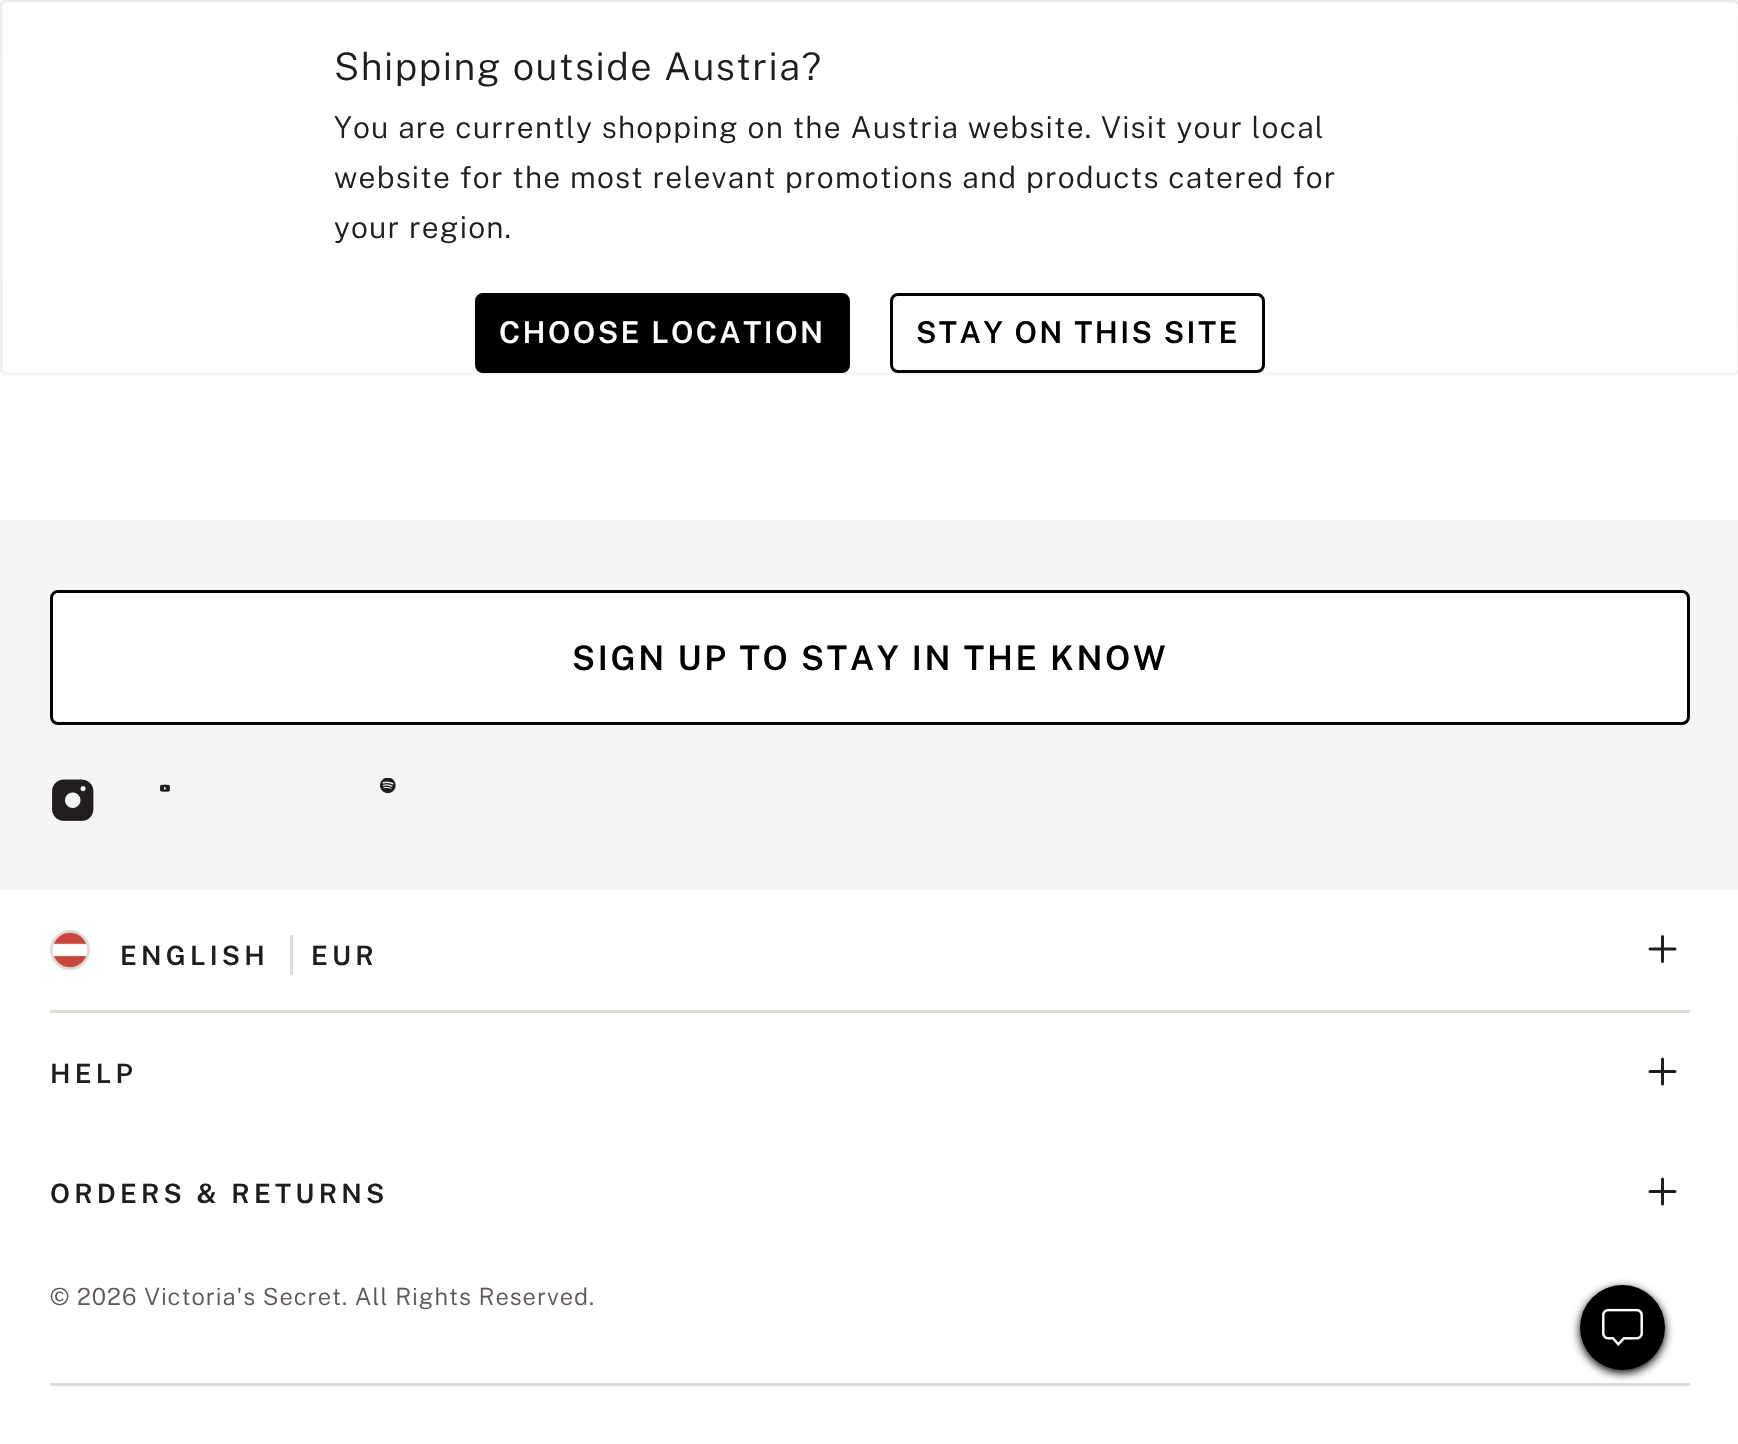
#include "include/core/SkBlurTypes.h"
#include "include/core/SkCanvas.h"
#include "include/core/SkData.h"
#include "include/core/SkFont.h"
#include "include/core/SkFontMgr.h"
#include "include/core/SkImage.h"
#include "include/core/SkMaskFilter.h"
#include "include/core/SkPaint.h"
#include "include/core/SkPathBuilder.h"
#include "include/core/SkTextBlob.h"
#include "include/effects/SkDashPathEffect.h"
#include "include/effects/SkGradientShader.h"
#include "include/utils/SkParsePath.h"

extern sk_sp<SkFontMgr> fontMgr;

void draw(SkCanvas* canvas) {
    SkPaint p;
    p.setAntiAlias(true);
    auto font = [&](const char* family, int weight, float size, bool italic = false) {
        SkFontStyle style(weight, SkFontStyle::kNormal_Width,
            italic ? SkFontStyle::kItalic_Slant : SkFontStyle::kUpright_Slant);
        SkFont result(fontMgr->matchFamilyStyle(family, style), size);
        result.setSubpixel(true);
        return result;
    };
    auto drawTracked = [&](const char* s, float x, float y, const SkFont& font, const SkPaint& ink, float letter, float word) {
        std::vector<SkGlyphID> glyphs(font.countText(s, strlen(s), SkTextEncoding::kUTF8));
        std::vector<float> xs(glyphs.size());
        font.textToGlyphs(s, strlen(s), SkTextEncoding::kUTF8, glyphs);
        font.getXPos(glyphs, xs, x);
        float extra = 0;
        for (size_t i = 0; i < glyphs.size(); i++) {
            xs[i] += extra;
            extra += letter + word * (glyphs[i] == font.unicharToGlyph(' '));
        }
        canvas->drawTextBlob(SkTextBlob::MakeFromPosHGlyphs(glyphs, xs, y, font), 0, 0, ink);
    };
    auto drawPhoto = [&](const char* path, float l, float t, float r, float b) {
        auto image = SkImages::DeferredFromEncodedData(SkData::MakeFromFileName(path));
        canvas->drawImageRect(image, SkRect::MakeLTRB(l, t, r, b), SkSamplingOptions());
    };
    canvas->clear(0xFFFFFFFF);
    p.setStyle(SkPaint::kStroke_Style);
    p.setStrokeWidth(2.5f);
    p.setColor(0xFFF5F5F6);
    canvas->drawPath(SkPathBuilder().moveTo(1737.5f, 372.5f).lineTo(1735, 374).lineTo(5, 374).lineTo(2.5f, 372.5f).detach(), p);
    p.setColor(0xFFEFECEA);
    canvas->drawPath(SkPathBuilder().moveTo(2.5f, 372.5f).lineTo(1.5f, 370.5f).lineTo(1, 5).cubicTo(1.5f, 3, 3, 1.5f, 5, 1).lineTo(1735, 1).cubicTo(1737, 1.5f, 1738.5f, 3, 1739, 5).lineTo(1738.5f, 370.5f).lineTo(1737.5f, 372.5f).detach(), p);
    auto font1 = font("Public Sans", 300, 38);
    p.setStyle(SkPaint::kFill_Style);
    p.setColor(0xFF221D1D);
    drawTracked("Shipping outside Austria?", 334, 80, font1, p, 1.5f, 0);
    auto font2 = font("Public Sans", 300, 30);
    {
        const struct { const char* s; float x, y; } items[] = {
            {"You are currently shopping on the Austria website. Visit your local", 334, 138},
            {"website for the most relevant promotions and products catered for", 334, 188},
            {"your region.", 334, 238},
        };
        for (auto [s, x, y] : items) {
            drawTracked(s, x, y, font2, p, 1.2f, 0);
        }
    }
    p.setColor(0xFF000000);
    canvas->drawRoundRect(SkRect::MakeLTRB(476.5f, 294.5f, 848.5f, 371.5f), 6.5f, 6.5f, p);
    p.setStyle(SkPaint::kStroke_Style);
    p.setStrokeWidth(3);
    canvas->drawRoundRect(SkRect::MakeLTRB(476.5f, 294.5f, 848.5f, 371.5f), 6.5f, 6.5f, p);
    auto font3 = font("Public Sans", 600, 30);
    p.setStyle(SkPaint::kFill_Style);
    p.setColor(0xFFFFFFFF);
    drawTracked("CHOOSE LOCATION", 499, 343, font3, p, 2.4f, 0);
    canvas->drawRoundRect(SkRect::MakeLTRB(891.5f, 294.5f, 1263.5f, 371.5f), 6.5f, 6.5f, p);
    p.setStyle(SkPaint::kStroke_Style);
    p.setColor(0xFF000000);
    canvas->drawRoundRect(SkRect::MakeLTRB(891.5f, 294.5f, 1263.5f, 371.5f), 6.5f, 6.5f, p);
    p.setStyle(SkPaint::kFill_Style);
    drawTracked("STAY ON THIS SITE", 916, 343, font3, p, 2.4f, 0);
    p.setColor(0xFFF5F5F6);
    canvas->drawRect(SkRect::MakeLTRB(0, 520, 1738, 890), p);
    p.setColor(0xFFFFFFFF);
    canvas->drawRoundRect(SkRect::MakeLTRB(51.5f, 591.5f, 1688.5f, 723.5f), 6.5f, 6.5f, p);
    p.setStyle(SkPaint::kStroke_Style);
    p.setColor(0xFF000000);
    canvas->drawRoundRect(SkRect::MakeLTRB(51.5f, 591.5f, 1688.5f, 723.5f), 6.5f, 6.5f, p);
    auto font4 = font("Public Sans", 600, 33.75f);
    p.setStyle(SkPaint::kFill_Style);
    drawTracked("SIGN UP TO STAY IN THE KNOW", 572, 670, font4, p, 2.7f, 0);
    drawPhoto("media/1.png", 52, 779, 94, 821);
    drawPhoto("media/2.png", 275, 780, 276, 781);
    drawPhoto("media/3.png", 380, 778, 396, 794);
    drawPhoto("media/4.png", 160, 784, 170, 792);
    p.setColor(0xFFE0DAD5);
    canvas->drawRect(SkRect::MakeLTRB(50, 1010, 1690, 1013), p);
    p.setStyle(SkPaint::kStroke_Style);
    canvas->drawCircle(70, 950, 18.5f, p);
    drawPhoto("media/5.png", 52, 932, 88, 968);
    auto font5 = font("Public Sans", 600, 26.7f);
    p.setStyle(SkPaint::kFill_Style);
    p.setColor(0xFF221D1D);
    drawTracked("ENGLISH", 120, 965, font5, p, 4.25f, 0);
    p.setColor(0xFFE0DAD5);
    canvas->drawRect(SkRect::MakeLTRB(290, 935, 293, 975), p);
    p.setColor(0xFF221D1D);
    drawTracked("EUR", 311, 965, font5, p, 4.25f, 0);
    p.setStyle(SkPaint::kStroke_Style);
    p.setStrokeCap(SkPaint::kRound_Cap);
    canvas->drawPath(SkPathBuilder().moveTo(1662.5f, 936.5f).lineTo(1662.5f, 949).moveTo(1662.5f, 961.5f).lineTo(1662.5f, 949).moveTo(1675, 949).lineTo(1662.5f, 949).moveTo(1662.5f, 949).lineTo(1650, 949).detach(), p);
    p.setStyle(SkPaint::kFill_Style);
    drawTracked("HELP", 50, 1083, font5, p, 4.25f, 0);
    p.setStyle(SkPaint::kStroke_Style);
    canvas->drawPath(SkPathBuilder().moveTo(1662.5f, 1059).lineTo(1662.5f, 1071.5f).moveTo(1662.5f, 1084).lineTo(1662.5f, 1071.5f).moveTo(1675, 1071.5f).lineTo(1662.5f, 1071.5f).moveTo(1662.5f, 1071.5f).lineTo(1650, 1071.5f).detach(), p);
    p.setStyle(SkPaint::kFill_Style);
    drawTracked("ORDERS & RETURNS", 50, 1203, font5, p, 4.25f, 0);
    p.setStyle(SkPaint::kStroke_Style);
    canvas->drawPath(SkPathBuilder().moveTo(1662.5f, 1179).lineTo(1662.5f, 1191.5f).moveTo(1662.5f, 1204).lineTo(1662.5f, 1191.5f).moveTo(1675, 1191.5f).lineTo(1662.5f, 1191.5f).moveTo(1662.5f, 1191.5f).lineTo(1650, 1191.5f).detach(), p);
    auto font6 = font("Public Sans", 300, 23.7f);
    p.setStyle(SkPaint::kFill_Style);
    p.setColor(0xFF605858);
    drawTracked("© 2026 Victoria's Secret. All Rights Reserved.", 50, 1305, font6, p, 0.95f, 0);
    p.setColor(0xFFE0DAD5);
    canvas->drawRect(SkRect::MakeLTRB(50, 1383, 1690, 1386), p);
    p.setColor(0xFF000000);
    p.setMaskFilter(SkMaskFilter::MakeBlur(kNormal_SkBlurStyle, 5));
    canvas->drawRoundRect(SkRect::MakeLTRB(1580, 1288, 1665, 1373), 42.5f, 42.5f, p);
    p.setMaskFilter(nullptr);
    canvas->drawCircle(1622.5f, 1327.5f, 42.5f, p);
    drawPhoto("media/6.png", 1602, 1308, 1643, 1346);
}
